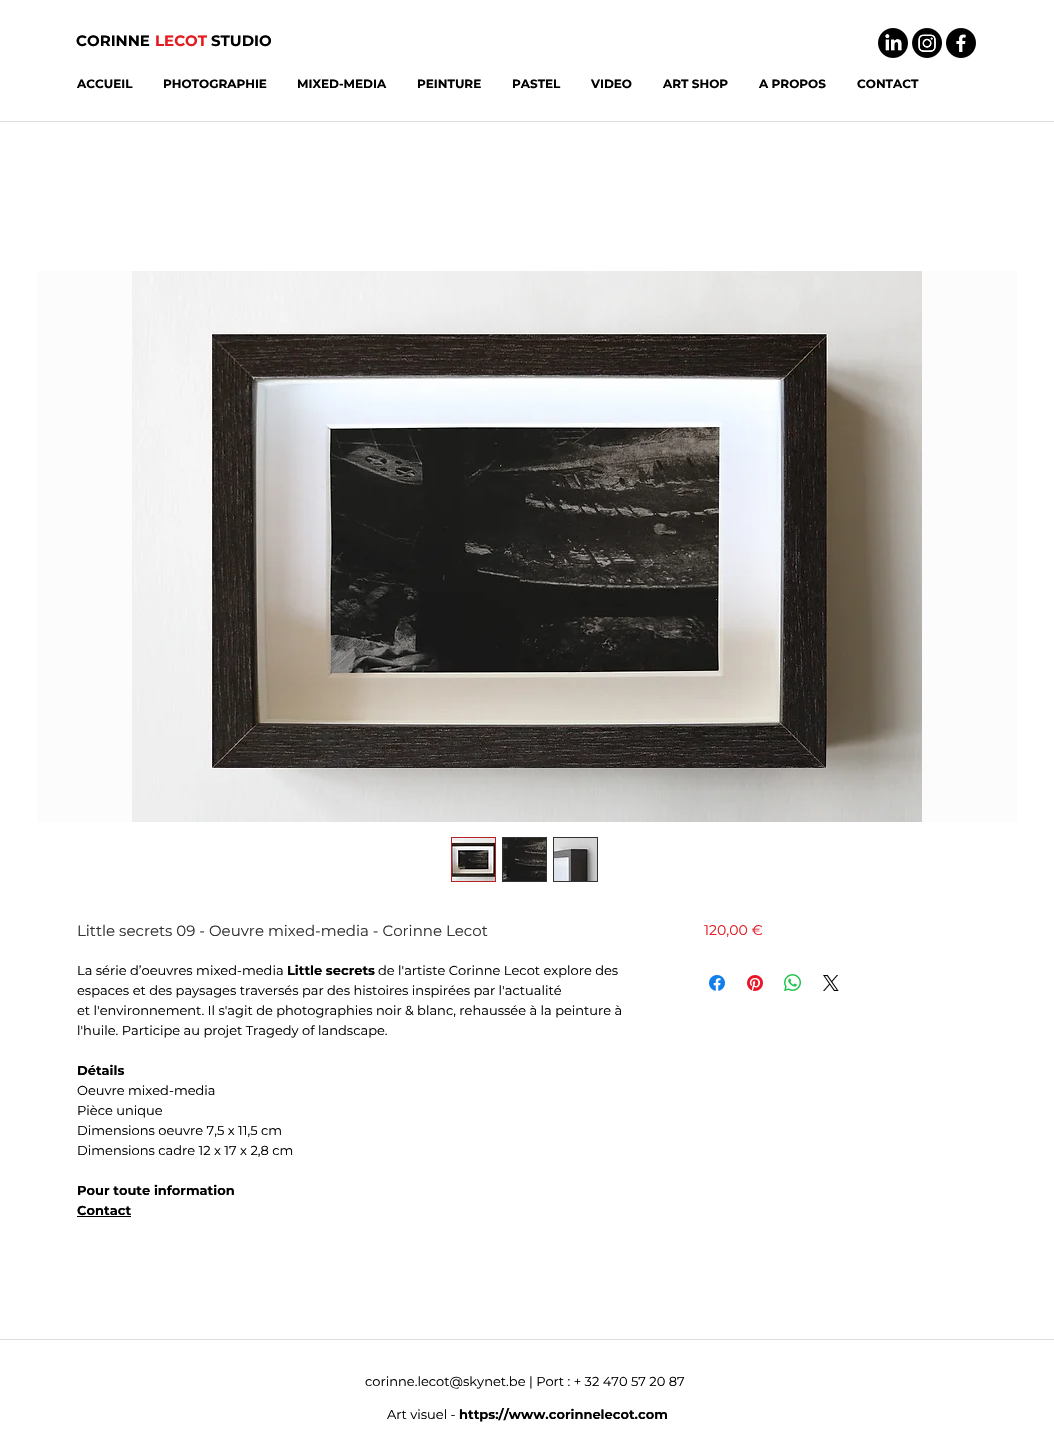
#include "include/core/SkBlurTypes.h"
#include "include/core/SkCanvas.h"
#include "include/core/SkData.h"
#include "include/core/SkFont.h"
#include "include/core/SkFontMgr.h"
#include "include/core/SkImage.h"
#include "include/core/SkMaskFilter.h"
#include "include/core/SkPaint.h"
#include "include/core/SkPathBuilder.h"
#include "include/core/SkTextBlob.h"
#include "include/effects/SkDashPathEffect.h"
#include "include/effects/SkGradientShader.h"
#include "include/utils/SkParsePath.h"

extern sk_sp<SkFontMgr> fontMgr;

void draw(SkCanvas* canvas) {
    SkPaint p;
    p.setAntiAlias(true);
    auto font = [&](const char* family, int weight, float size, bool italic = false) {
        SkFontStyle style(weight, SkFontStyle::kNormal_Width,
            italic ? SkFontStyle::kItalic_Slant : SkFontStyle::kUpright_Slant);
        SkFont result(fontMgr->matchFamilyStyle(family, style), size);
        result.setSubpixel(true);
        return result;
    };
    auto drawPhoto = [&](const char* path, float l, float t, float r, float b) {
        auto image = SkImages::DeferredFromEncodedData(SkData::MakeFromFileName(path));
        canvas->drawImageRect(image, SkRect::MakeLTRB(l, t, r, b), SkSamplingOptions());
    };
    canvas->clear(0xFFFFFFFF);
    auto font1 = font("Montserrat", 700, 15);
    p.setColor(0xFF000000);
    canvas->drawString("CORINNE", 76, 46, font1, p);
    p.setColor(0xFFE21C21);
    canvas->drawString("LECOT", 155, 46, font1, p);
    p.setColor(0xFF000000);
    canvas->drawString("STUDIO", 211, 46, font1, p);
    drawPhoto("media/1.png", 878, 28, 908, 58);
    drawPhoto("media/2.png", 912, 28, 942, 58);
    drawPhoto("media/3.png", 946, 28, 976, 58);
    auto font2 = font("Montserrat", 700, 12);
    {
        const struct { const char* s; float x, y; } items[] = {
            {"ACCUEIL", 77, 88},
            {"PHOTOGRAPHIE", 163, 88},
            {"MIXED-MEDIA", 297, 88},
            {"PEINTURE", 417, 88},
            {"PASTEL", 512, 88},
            {"VIDEO", 591, 88},
            {"ART SHOP", 663, 88},
            {"A PROPOS", 759, 88},
            {"CONTACT", 857, 88},
        };
        for (auto [s, x, y] : items) {
            canvas->drawString(s, x, y, font2, p);
        }
    }
    p.setColor(0xFFDDDDDD);
    canvas->drawRect(SkRect::MakeLTRB(0, 121, 1054, 122), p);
    p.setColor(0xFFFCFCFC);
    canvas->drawRect(SkRect::MakeLTRB(37, 271, 1017, 822), p);
    drawPhoto("media/4.png", 132, 271, 922, 822);
    p.setStyle(SkPaint::kStroke_Style);
    p.setStrokeWidth(1);
    p.setColor(0xFFB52226);
    canvas->drawRect(SkRect::MakeLTRB(451.5f, 837.5f, 495.5f, 881.5f), p);
    drawPhoto("media/5.png", 452, 838, 495, 881);
    p.setStyle(SkPaint::kFill_Style);
    p.setColor(0xFF333333);
    canvas->drawRect(SkRect::MakeLTRB(502, 837, 547, 882), p);
    drawPhoto("media/6.png", 503, 838, 546, 881);
    canvas->drawRect(SkRect::MakeLTRB(553, 837, 598, 882), p);
    drawPhoto("media/7.png", 554, 838, 597, 881);
    auto font3 = font("Montserrat", 400, 15);
    canvas->drawString("Little secrets 09 - Oeuvre mixed-media - Corinne Lecot", 77, 936, font3, p);
    auto font4 = font("Montserrat", 400, 13);
    p.setColor(0xFF000000);
    canvas->drawString("La série d’oeuvres mixed-media", 77, 975, font4, p);
    auto font5 = font("Montserrat", 700, 13);
    canvas->drawString("Little secrets", 287, 975, font5, p);
    {
        const struct { const char* s; float x, y; } items[] = {
            {"de l'artiste Corinne Lecot explore des", 378, 975},
            {"espaces et des paysages traversés par des histoires inspirées par l'actualité", 77, 995},
            {"et l'environnement. Il s'agit de photographies noir & blanc, rehaussée à la peinture à", 77, 1015},
            {"l'huile. Participe au projet Tragedy of landscape.", 77, 1035},
        };
        for (auto [s, x, y] : items) {
            canvas->drawString(s, x, y, font4, p);
        }
    }
    canvas->drawString("Détails", 77, 1075, font5, p);
    {
        const struct { const char* s; float x, y; } items[] = {
            {"Oeuvre mixed-media", 77, 1095},
            {"Pièce unique", 77, 1115},
            {"Dimensions oeuvre 7,5 x 11,5 cm", 77, 1135},
            {"Dimensions cadre 12 x 17 x 2,8 cm", 77, 1155},
        };
        for (auto [s, x, y] : items) {
            canvas->drawString(s, x, y, font4, p);
        }
    }
    canvas->drawString("Pour toute information", 77, 1195, font5, p);
    canvas->drawString("Contact", 77, 1215, font5, p);
    canvas->drawRect(SkRect::MakeLTRB(77, 1216, 131, 1217), p);
    auto font6 = font("Montserrat", 400, 14);
    p.setColor(0xFFE21C21);
    canvas->drawString("120,00 €", 704, 935, font6, p);
    drawPhoto("media/8.png", 709, 975, 725, 991);
    drawPhoto("media/9.png", 747, 975, 763, 991);
    drawPhoto("media/10.png", 784, 974, 801, 991);
    drawPhoto("media/11.png", 823, 975, 839, 991);
    p.setColor(0xFFDDDDDD);
    canvas->drawRect(SkRect::MakeLTRB(0, 1339, 1054, 1340), p);
    p.setColor(0xFF000000);
    canvas->drawString("corinne.lecot@skynet.be | Port : + 32 470 57 20 87", 365, 1386, font4, p);
    canvas->drawString("Art visuel -", 387, 1419, font4, p);
    canvas->drawString("https://www.corinnelecot.com", 459, 1419, font5, p);
}
